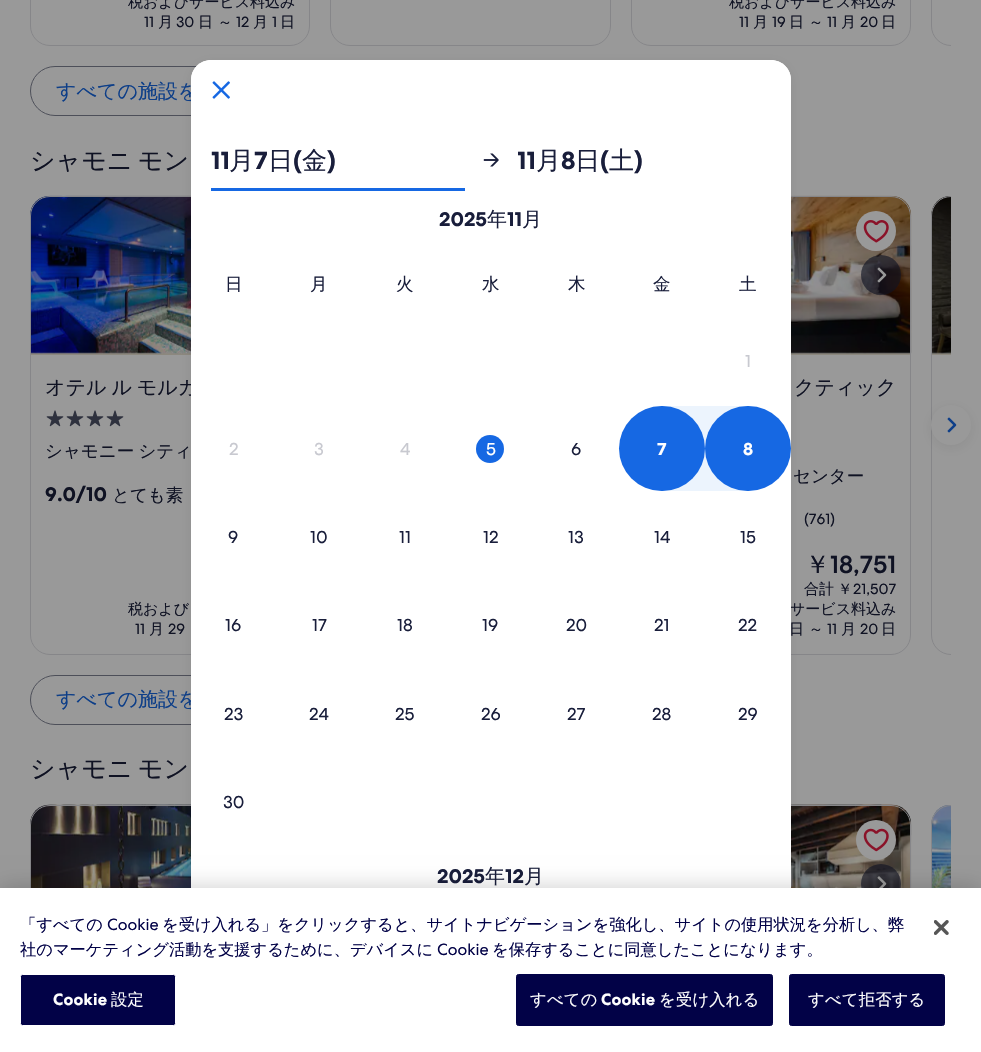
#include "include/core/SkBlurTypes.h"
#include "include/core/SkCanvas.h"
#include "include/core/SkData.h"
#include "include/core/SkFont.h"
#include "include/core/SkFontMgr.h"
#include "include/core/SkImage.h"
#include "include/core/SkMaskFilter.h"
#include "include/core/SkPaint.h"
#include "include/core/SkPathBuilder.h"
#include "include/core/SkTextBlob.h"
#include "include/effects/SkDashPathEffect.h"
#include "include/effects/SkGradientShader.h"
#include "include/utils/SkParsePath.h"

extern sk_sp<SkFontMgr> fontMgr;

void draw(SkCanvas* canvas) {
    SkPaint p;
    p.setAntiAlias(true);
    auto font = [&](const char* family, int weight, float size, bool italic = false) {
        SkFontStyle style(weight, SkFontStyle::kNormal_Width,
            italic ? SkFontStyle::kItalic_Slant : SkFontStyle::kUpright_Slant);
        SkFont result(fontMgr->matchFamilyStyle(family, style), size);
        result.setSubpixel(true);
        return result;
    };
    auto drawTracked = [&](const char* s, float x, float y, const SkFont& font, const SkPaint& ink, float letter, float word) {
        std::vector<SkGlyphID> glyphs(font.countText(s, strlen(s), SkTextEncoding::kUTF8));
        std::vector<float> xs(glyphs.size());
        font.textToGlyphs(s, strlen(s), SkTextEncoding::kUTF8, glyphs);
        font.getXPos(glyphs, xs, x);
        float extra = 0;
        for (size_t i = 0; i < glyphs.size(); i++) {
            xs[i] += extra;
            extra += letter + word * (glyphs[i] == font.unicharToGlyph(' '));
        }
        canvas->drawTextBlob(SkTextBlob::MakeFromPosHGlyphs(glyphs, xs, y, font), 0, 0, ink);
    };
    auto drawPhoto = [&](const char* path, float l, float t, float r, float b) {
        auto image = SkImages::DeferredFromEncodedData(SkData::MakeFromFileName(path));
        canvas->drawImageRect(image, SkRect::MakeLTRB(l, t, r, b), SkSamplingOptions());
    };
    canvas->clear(0xFF999999);
    p.setStyle(SkPaint::kStroke_Style);
    p.setStrokeWidth(1);
    p.setColor(0xFF868689);
    canvas->drawRoundRect(SkRect::MakeLTRB(30.5f, -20.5f, 309.5f, 45.5f), 19.5f, 19.5f, p);
    auto font1 = font("WenQuanYi Zen Hei", 500, 15);
    p.setStyle(SkPaint::kFill_Style);
    p.setColor(0xFF0F1223);
    canvas->drawString("税およびサービス料込み", 128, 7, font1, p);
    auto font2 = font("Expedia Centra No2", 400, 15);
    canvas->drawString("11", 144, 27, font2, p);
    canvas->drawString("月", 158, 27, font1, p);
    canvas->drawString("30", 176, 27, font2, p);
    canvas->drawString("日 ～", 198, 27, font1, p);
    canvas->drawString("12", 236, 27, font2, p);
    canvas->drawString("月", 253, 27, font1, p);
    canvas->drawString("1", 272, 27, font2, p);
    canvas->drawString("日", 280, 27, font1, p);
    p.setStyle(SkPaint::kStroke_Style);
    p.setColor(0xFF868689);
    canvas->drawRoundRect(SkRect::MakeLTRB(330.5f, -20.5f, 610.5f, 45.5f), 19.5f, 19.5f, p);
    canvas->drawRoundRect(SkRect::MakeLTRB(631.5f, -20.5f, 910.5f, 45.5f), 19.5f, 19.5f, p);
    p.setStyle(SkPaint::kFill_Style);
    p.setColor(0xFF0F1223);
    canvas->drawString("税およびサービス料込み", 729, 7, font1, p);
    canvas->drawString("11", 739, 27, font2, p);
    canvas->drawString("月", 753, 27, font1, p);
    canvas->drawString("19", 772, 27, font2, p);
    canvas->drawString("日 ～", 789, 27, font1, p);
    canvas->drawString("11", 827, 27, font2, p);
    canvas->drawString("月", 841, 27, font1, p);
    canvas->drawString("20", 860, 27, font2, p);
    canvas->drawString("日", 881, 27, font1, p);
    canvas->save();
    canvas->clipRect(SkRect::MakeLTRB(30, 0, 951, 46));
    p.setStyle(SkPaint::kStroke_Style);
    p.setColor(0xFF868689);
    canvas->drawRoundRect(SkRect::MakeLTRB(931.5f, -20.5f, 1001.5f, 45.5f), 19.5f, 19.5f, p);
    canvas->restore();
    p.setColor(0xFF4D4F59);
    canvas->drawRoundRect(SkRect::MakeLTRB(30.5f, 66.5f, 264.5f, 115.5f), 24.5f, 24.5f, p);
    auto font3 = font("WenQuanYi Zen Hei", 500, 20);
    p.setStyle(SkPaint::kFill_Style);
    p.setColor(0xFF0D3E88);
    canvas->drawString("すべての施設を", 56, 98, font3, p);
    auto font4 = font("WenQuanYi Zen Hei", 500, 25);
    p.setColor(0xFF0F1223);
    drawTracked("シャモニ モン", 30, 169, font4, p, 0, -2);
    drawPhoto("media/1.png", 30, 196, 48, 216);
    p.setColor(0xFF8C887E);
    canvas->drawPath(SkPathBuilder().moveTo(50, 196).lineTo(290, 196).cubicTo(301, 196, 310, 205, 310, 216).lineTo(310, 355).lineTo(30, 355).lineTo(30, 216).cubicTo(30, 205, 39, 196, 50, 196).close().detach(), p);
    drawPhoto("media/2.png", 30, 196, 191, 354);
    drawPhoto("media/3.png", 30, 195, 191, 354);
    drawPhoto("media/4.png", 46, 410, 64, 427);
    drawPhoto("media/4.png", 66, 410, 84, 427);
    drawPhoto("media/4.png", 86, 410, 104, 427);
    drawPhoto("media/4.png", 106, 410, 124, 427);
    p.setStyle(SkPaint::kStroke_Style);
    p.setColor(0xFF868689);
    canvas->drawRoundRect(SkRect::MakeLTRB(30.5f, 196.5f, 309.5f, 654.5f), 19.5f, 19.5f, p);
    p.setStyle(SkPaint::kFill_Style);
    p.setColor(0xFF0F1223);
    drawTracked("オテル ル モルガ", 45, 394, font3, p, 0, -1);
    auto font5 = font("WenQuanYi Zen Hei", 500, 17.5f);
    drawTracked("シャモニー シティ", 45, 457, font5, p, 0, -1);
    auto font6 = font("Expedia Centra No2", 700, 20);
    canvas->drawString("9.0/10", 45, 501, font6, p);
    canvas->drawString("とても素", 112, 501, font5, p);
    canvas->drawString("税および", 128, 614, font1, p);
    canvas->drawString("11", 135, 634, font2, p);
    canvas->drawString("月", 149, 634, font1, p);
    canvas->drawString("29", 168, 634, font2, p);
    drawPhoto("media/5.png", 893, 196, 911, 213);
    p.setColor(0xFF8C887E);
    canvas->drawPath(SkPathBuilder().moveTo(651, 196).lineTo(891, 196).cubicTo(902, 196, 911, 205, 911, 216).lineTo(911, 355).lineTo(631, 355).lineTo(631, 216).cubicTo(631, 205, 640, 196, 651, 196).close().detach(), p);
    drawPhoto("media/6.png", 791, 196, 911, 354);
    drawPhoto("media/7.png", 791, 195, 912, 354);
    p.setColor(0xA30F1223);
    canvas->drawCircle(881, 275, 20, p);
    drawPhoto("media/8.png", 877, 267, 887, 283);
    p.setColor(0xFF999999);
    canvas->drawCircle(876, 231, 20, p);
    drawPhoto("media/9.png", 863, 220, 889, 243);
    p.setStyle(SkPaint::kStroke_Style);
    p.setColor(0xFF868689);
    canvas->drawRoundRect(SkRect::MakeLTRB(631.5f, 196.5f, 910.5f, 654.5f), 19.5f, 19.5f, p);
    p.setStyle(SkPaint::kFill_Style);
    p.setColor(0xFF0F1223);
    drawTracked("クティック", 794, 394, font3, p, 0, -1);
    drawTracked("センター", 793, 482, font5, p, 0, -1);
    canvas->drawString("(761)", 804, 524, font2, p);
    canvas->drawString("￥", 805, 573, font4, p);
    auto font7 = font("Expedia Centra No2", 500, 25);
    canvas->drawString("18,751", 830, 573, font7, p);
    drawTracked("合計 ￥", 804, 594, font1, p, 0, -1);
    canvas->drawString("21,507", 853, 594, font2, p);
    canvas->drawString("サービス料込み", 790, 614, font1, p);
    canvas->drawString("日 ～", 789, 634, font1, p);
    canvas->drawString("11", 827, 634, font2, p);
    canvas->drawString("月", 841, 634, font1, p);
    canvas->drawString("20", 860, 634, font2, p);
    canvas->drawString("日", 881, 634, font1, p);
    drawPhoto("media/10.png", 931, 196, 949, 216);
    p.setColor(0xFF8C887E);
    canvas->drawPath(SkPathBuilder().moveTo(951, 196).lineTo(951, 355).lineTo(931, 355).lineTo(931, 216).cubicTo(931, 205, 940, 196, 951, 196).close().detach(), p);
    drawPhoto("media/11.png", 931, 196, 951, 354);
    drawPhoto("media/12.png", 931, 196, 951, 354);
    canvas->save();
    canvas->clipRect(SkRect::MakeLTRB(30, 196, 951, 655));
    p.setStyle(SkPaint::kStroke_Style);
    p.setColor(0xFF868689);
    canvas->drawRoundRect(SkRect::MakeLTRB(931.5f, 196.5f, 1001.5f, 654.5f), 19.5f, 19.5f, p);
    canvas->restore();
    p.setStyle(SkPaint::kFill_Style);
    p.setColor(0x14070811);
    p.setMaskFilter(SkMaskFilter::MakeBlur(kNormal_SkBlurStyle, 7.5f));
    canvas->drawRoundRect(SkRect::MakeLTRB(931, 408, 971, 448), 20, 20, p);
    p.setMaskFilter(nullptr);
    p.setColor(0xFF999999);
    canvas->drawCircle(951, 425, 20, p);
    drawPhoto("media/13.png", 947, 417, 957, 433);
    p.setStyle(SkPaint::kStroke_Style);
    p.setColor(0xFF4D4F59);
    canvas->drawRoundRect(SkRect::MakeLTRB(30.5f, 675.5f, 264.5f, 724.5f), 24.5f, 24.5f, p);
    p.setStyle(SkPaint::kFill_Style);
    p.setColor(0xFF0D3E88);
    canvas->drawString("すべての施設を", 56, 706, font3, p);
    p.setColor(0xFF0F1223);
    drawTracked("シャモニ モン", 30, 777, font4, p, 0, -2);
    drawPhoto("media/14.png", 30, 805, 46, 825);
    drawPhoto("media/15.png", 30, 804, 191, 825);
    drawPhoto("media/16.png", 30, 804, 191, 888);
    p.setStyle(SkPaint::kStroke_Style);
    p.setColor(0xFF868689);
    canvas->drawRoundRect(SkRect::MakeLTRB(30.5f, 805.5f, 309.5f, 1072.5f), 19.5f, 19.5f, p);
    drawPhoto("media/17.png", 895, 805, 911, 821);
    drawPhoto("media/18.png", 791, 804, 911, 821);
    drawPhoto("media/19.png", 791, 804, 912, 888);
    p.setStyle(SkPaint::kFill_Style);
    p.setColor(0xA30F1223);
    canvas->drawCircle(881, 884, 20, p);
    drawPhoto("media/20.png", 877, 876, 887, 888);
    p.setColor(0xFF999999);
    canvas->drawCircle(876, 840, 20, p);
    drawPhoto("media/21.png", 863, 828, 889, 852);
    p.setStyle(SkPaint::kStroke_Style);
    p.setColor(0xFF868689);
    canvas->drawRoundRect(SkRect::MakeLTRB(631.5f, 805.5f, 910.5f, 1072.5f), 19.5f, 19.5f, p);
    drawPhoto("media/22.png", 931, 805, 948, 825);
    drawPhoto("media/23.png", 931, 805, 948, 825);
    drawPhoto("media/24.png", 931, 805, 951, 888);
    canvas->save();
    canvas->clipRect(SkRect::MakeLTRB(30, 805, 951, 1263));
    canvas->drawRoundRect(SkRect::MakeLTRB(931.5f, 805.5f, 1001.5f, 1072.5f), 19.5f, 19.5f, p);
    canvas->restore();
    p.setStyle(SkPaint::kFill_Style);
    p.setColor(0x140C0E1C);
    p.setMaskFilter(SkMaskFilter::MakeBlur(kNormal_SkBlurStyle, 7.5f));
    canvas->drawRoundRect(SkRect::MakeLTRB(191, 63, 791, 995), 20, 20, p);
    p.setMaskFilter(nullptr);
    p.setColor(0xFFFFFFFF);
    canvas->drawRoundRect(SkRect::MakeLTRB(191, 60, 791, 993), 20, 20, p);
    canvas->drawPath(SkPathBuilder().moveTo(211, 60).lineTo(771, 60).cubicTo(782, 60, 791, 69, 791, 80).lineTo(791, 190).lineTo(191, 190).lineTo(191, 80).cubicTo(191, 69, 200, 60, 211, 60).close().detach(), p);
    drawPhoto("media/25.png", 212, 81, 230, 99);
    p.setColor(0xFF1668E3);
    canvas->drawRect(SkRect::MakeLTRB(211, 188, 465, 191), p);
    auto font8 = font("Expedia Centra No2", 700, 25);
    p.setColor(0xFF191E3B);
    canvas->drawString("11", 211, 169, font8, p);
    canvas->drawString("月", 229, 169, font4, p);
    canvas->drawString("7", 254, 169, font8, p);
    canvas->drawString("日", 268, 169, font4, p);
    canvas->drawString("(", 293, 169, font8, p);
    canvas->drawString("金", 302, 169, font4, p);
    canvas->drawString(")", 327, 169, font8, p);
    drawPhoto("media/26.png", 483, 153, 499, 167);
    canvas->save();
    canvas->clipRect(SkRect::MakeLTRB(518, 130, 771, 190));
    canvas->drawString("11", 517, 169, font8, p);
    canvas->restore();
    canvas->drawString("月", 536, 169, font4, p);
    canvas->drawString("8", 561, 169, font8, p);
    canvas->drawString("日", 575, 169, font4, p);
    canvas->drawString("(", 600, 169, font8, p);
    canvas->drawString("土", 609, 169, font4, p);
    canvas->drawString(")", 634, 169, font8, p);
    canvas->drawString("2025", 439, 226, font6, p);
    canvas->drawString("年", 487, 226, font3, p);
    canvas->drawString("11", 507, 226, font6, p);
    canvas->drawString("月", 522, 226, font3, p);
    {
        const struct { const char* s; float x, y; } items[] = {
            {"日", 225, 290},
            {"月", 310, 290},
            {"火", 396, 290},
            {"水", 482, 290},
            {"木", 568, 290},
            {"金", 653, 290},
            {"土", 739, 290},
        };
        for (auto [s, x, y] : items) {
            canvas->drawString(s, x, y, font5, p);
        }
    }
    auto font9 = font("Expedia Centra No2", 400, 17.5f);
    p.setColor(0xFFC8C9D0);
    {
        const struct { const char* s; float x, y; } items[] = {
            {"1", 745, 367},
            {"2", 229, 455},
            {"3", 314, 455},
            {"4", 400, 455},
        };
        for (auto [s, x, y] : items) {
            canvas->drawString(s, x, y, font9, p);
        }
    }
    p.setColor(0xFF1668E3);
    canvas->drawCircle(490, 449, 14, p);
    p.setColor(0xFFFFFFFF);
    canvas->drawString("5", 486, 455, font9, p);
    p.setColor(0xFF191E3B);
    canvas->drawString("6", 571, 455, font9, p);
    p.setColor(0xFFECF4FD);
    canvas->drawRect(SkRect::MakeLTRB(663, 406, 747, 491), p);
    p.setColor(0xFF1668E3);
    canvas->drawRoundRect(SkRect::MakeLTRB(619, 406, 705, 491), 42.5f, 42.5f, p);
    auto font10 = font("Expedia Centra No2", 700, 17.5f);
    p.setColor(0xFFFFFFFF);
    canvas->drawString("7", 657, 455, font10, p);
    p.setColor(0xFF1668E3);
    canvas->drawRoundRect(SkRect::MakeLTRB(705, 406, 791, 491), 42.5f, 42.5f, p);
    p.setColor(0xFFFFFFFF);
    canvas->drawString("8", 743, 455, font10, p);
    p.setColor(0xFF191E3B);
    {
        const struct { const char* s; float x, y; } items[] = {
            {"9", 228, 543},
            {"10", 310, 543},
            {"11", 399, 543},
            {"12", 483, 543},
            {"13", 568, 543},
            {"14", 654, 543},
            {"15", 740, 543},
            {"16", 225, 631},
            {"17", 312, 631},
            {"18", 397, 631},
            {"19", 482, 631},
            {"20", 566, 631},
            {"21", 654, 631},
            {"22", 738, 631},
            {"23", 224, 720},
            {"24", 309, 720},
            {"25", 395, 720},
            {"26", 481, 720},
            {"27", 567, 720},
            {"28", 652, 720},
            {"29", 738, 720},
            {"30", 223, 808},
        };
        for (auto [s, x, y] : items) {
            canvas->drawString(s, x, y, font9, p);
        }
    }
    canvas->drawString("2025", 437, 883, font6, p);
    canvas->drawString("年", 485, 883, font3, p);
    canvas->drawString("12", 505, 883, font6, p);
    canvas->drawString("月", 524, 883, font3, p);
    p.setColor(0x33000000);
    p.setMaskFilter(SkMaskFilter::MakeBlur(kNormal_SkBlurStyle, 11));
    canvas->drawRect(SkRect::MakeLTRB(0, 888, 981, 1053), p);
    p.setMaskFilter(nullptr);
    p.setColor(0xFFFFFFFF);
    canvas->drawRect(SkRect::MakeLTRB(0, 888, 981, 1052), p);
    auto font11 = font("WenQuanYi Zen Hei", 500, 16.25f);
    p.setColor(0xFF020247);
    canvas->drawString("「すべての", 20, 930, font11, p);
    auto font12 = font("Expedia Centra No2", 400, 16.25f);
    canvas->drawString("Cookie", 107, 930, font12, p);
    canvas->drawString("を受け入れる」をクリックすると、サイトナビゲーションを強化し、サイトの使用状況を分析し、弊", 162, 930, font11, p);
    canvas->drawString("社のマーケティング活動を支援するために、デバイスに", 20, 955, font11, p);
    canvas->drawString("Cookie", 437, 955, font12, p);
    canvas->drawString("を保存することに同意したことになります。", 492, 955, font11, p);
    canvas->drawRoundRect(SkRect::MakeLTRB(20.5f, 974.5f, 175.5f, 1025.5f), 2, 2, p);
    p.setStyle(SkPaint::kStroke_Style);
    p.setColor(0xFFFFFFFF);
    canvas->drawRoundRect(SkRect::MakeLTRB(20.5f, 974.5f, 175.5f, 1025.5f), 2, 2, p);
    auto font13 = font("Expedia Centra No2", 700, 16.25f);
    p.setStyle(SkPaint::kFill_Style);
    drawTracked("Cookie", 53, 1005, font13, p, 0.25f, 0);
    drawTracked("設定", 111, 1005, font11, p, 0.25f, 0);
    p.setColor(0xFF020247);
    canvas->drawRoundRect(SkRect::MakeLTRB(516.5f, 974.5f, 772.5f, 1025.5f), 2, 2, p);
    p.setStyle(SkPaint::kStroke_Style);
    canvas->drawRoundRect(SkRect::MakeLTRB(516.5f, 974.5f, 772.5f, 1025.5f), 2, 2, p);
    p.setStyle(SkPaint::kFill_Style);
    p.setColor(0xFFFFFFFF);
    drawTracked("すべての", 530, 1005, font11, p, 0.25f, 0);
    drawTracked("Cookie", 601, 1005, font13, p, 0.25f, 0);
    drawTracked("を受け入れる", 659, 1005, font11, p, 0.25f, 0);
    p.setColor(0xFF020247);
    canvas->drawRoundRect(SkRect::MakeLTRB(789.5f, 974.5f, 944.5f, 1025.5f), 2, 2, p);
    p.setStyle(SkPaint::kStroke_Style);
    canvas->drawRoundRect(SkRect::MakeLTRB(789.5f, 974.5f, 944.5f, 1025.5f), 2, 2, p);
    p.setStyle(SkPaint::kFill_Style);
    p.setColor(0xFFFFFFFF);
    drawTracked("すべて拒否する", 808, 1005, font11, p, 0.25f, 0);
    drawPhoto("media/27.png", 934, 920, 949, 935);
}
